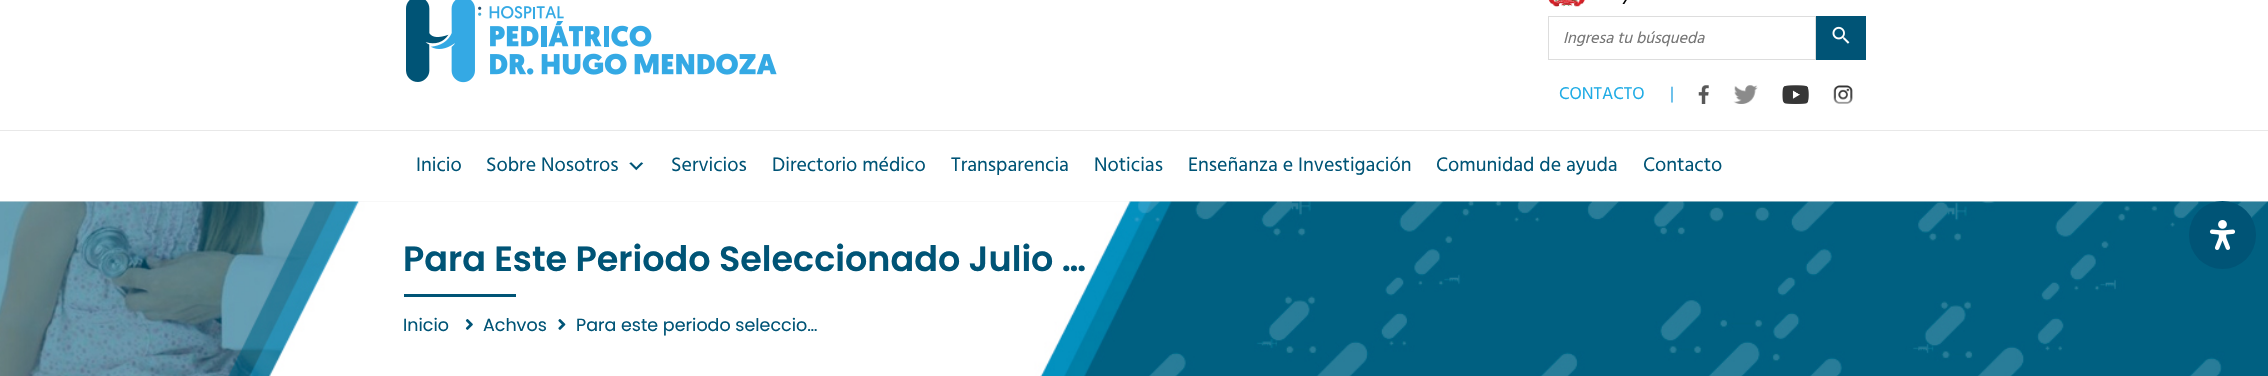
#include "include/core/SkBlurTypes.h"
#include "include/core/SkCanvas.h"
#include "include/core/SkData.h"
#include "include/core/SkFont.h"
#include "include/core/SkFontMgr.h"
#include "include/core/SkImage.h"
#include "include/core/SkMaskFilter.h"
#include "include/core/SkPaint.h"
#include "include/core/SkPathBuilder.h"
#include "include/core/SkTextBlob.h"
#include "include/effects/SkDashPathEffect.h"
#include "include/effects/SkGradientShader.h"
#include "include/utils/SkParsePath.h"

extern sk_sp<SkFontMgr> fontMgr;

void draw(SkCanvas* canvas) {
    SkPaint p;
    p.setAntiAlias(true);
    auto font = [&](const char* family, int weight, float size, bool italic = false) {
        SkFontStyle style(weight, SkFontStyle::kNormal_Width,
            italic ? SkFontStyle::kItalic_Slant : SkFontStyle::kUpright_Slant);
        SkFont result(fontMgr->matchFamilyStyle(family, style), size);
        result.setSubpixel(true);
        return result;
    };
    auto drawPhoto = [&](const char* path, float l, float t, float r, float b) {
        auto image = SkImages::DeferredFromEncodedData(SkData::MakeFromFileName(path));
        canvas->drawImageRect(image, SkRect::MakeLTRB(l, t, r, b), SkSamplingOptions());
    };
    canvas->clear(0xFFFFFFFF);
    p.setColor(0xFFE8E8E8);
    canvas->drawRect(SkRect::MakeLTRB(0, 130, 2268, 131), p);
    drawPhoto("media/1.png", 406, 0, 777, 83);
    drawPhoto("media/2.png", 1548, 0, 1627, 7);
    p.setStyle(SkPaint::kStroke_Style);
    p.setStrokeWidth(1);
    p.setColor(0xFFDDDDDD);
    canvas->drawRect(SkRect::MakeLTRB(1548.5f, 16.5f, 1815.5f, 59.5f), p);
    auto font1 = font("Hind", 400, 16.25f, true);
    p.setStyle(SkPaint::kFill_Style);
    p.setColor(0xFF757575);
    canvas->drawString("Ingresa tu búsqueda", 1563, 43, font1, p);
    p.setColor(0xFF005476);
    canvas->drawRect(SkRect::MakeLTRB(1816, 16, 1866, 60), p);
    drawPhoto("media/3.png", 1832, 26, 1850, 44);
    auto font2 = font("Hind", 400, 17.5f);
    p.setColor(0xFF1EABE5);
    canvas->drawString("CONTACTO", 1559, 99, font2, p);
    p.setColor(0xFF33A9E3);
    canvas->drawString("|", 1670, 99, font2, p);
    drawPhoto("media/4.png", 1698, 85, 1709, 104);
    drawPhoto("media/5.png", 1733, 85, 1758, 104);
    drawPhoto("media/6.png", 1782, 85, 1809, 104);
    drawPhoto("media/7.png", 1833, 85, 1853, 104);
    auto font3 = font("Hind", 400, 20);
    p.setColor(0xFF005476);
    canvas->drawString("Inicio", 416, 171, font3, p);
    canvas->drawString("Sobre Nosotros", 486, 171, font3, p);
    drawPhoto("media/8.png", 629, 162, 644, 171);
    {
        const struct { const char* s; float x, y; } items[] = {
            {"Servicios", 671, 171},
            {"Directorio médico", 772, 171},
            {"Transparencia", 951, 171},
            {"Noticias", 1094, 171},
            {"Enseñanza e Investigación", 1188, 171},
            {"Comunidad de ayuda", 1436, 171},
            {"Contacto", 1643, 171},
        };
        for (auto [s, x, y] : items) {
            canvas->drawString(s, x, y, font3, p);
        }
    }
    p.setColor(0xFFF1F1F1);
    canvas->drawRect(SkRect::MakeLTRB(0, 201, 2268, 202), p);
    drawPhoto("media/9.png", 0, 201, 2268, 376);
    auto font4 = font("Poppins", 600, 35);
    p.setColor(0xFF005476);
    canvas->drawString("Para Este Periodo Seleccionado Julio …", 403, 271, font4, p);
    canvas->drawRect(SkRect::MakeLTRB(404, 294, 516, 297), p);
    auto font5 = font("Poppins", 400, 17.5f);
    canvas->drawString("Inicio", 403, 331, font5, p);
    drawPhoto("media/10.png", 465, 319, 473, 330);
    canvas->drawString("Achvos", 483, 331, font5, p);
    drawPhoto("media/11.png", 558, 319, 566, 330);
    canvas->drawString("Para este periodo seleccio…", 576, 331, font5, p);
    canvas->drawRoundRect(SkRect::MakeLTRB(2189, 201, 2256, 269), 33.5f, 33.5f, p);
    drawPhoto("media/12.png", 2209, 220, 2236, 250);
}
